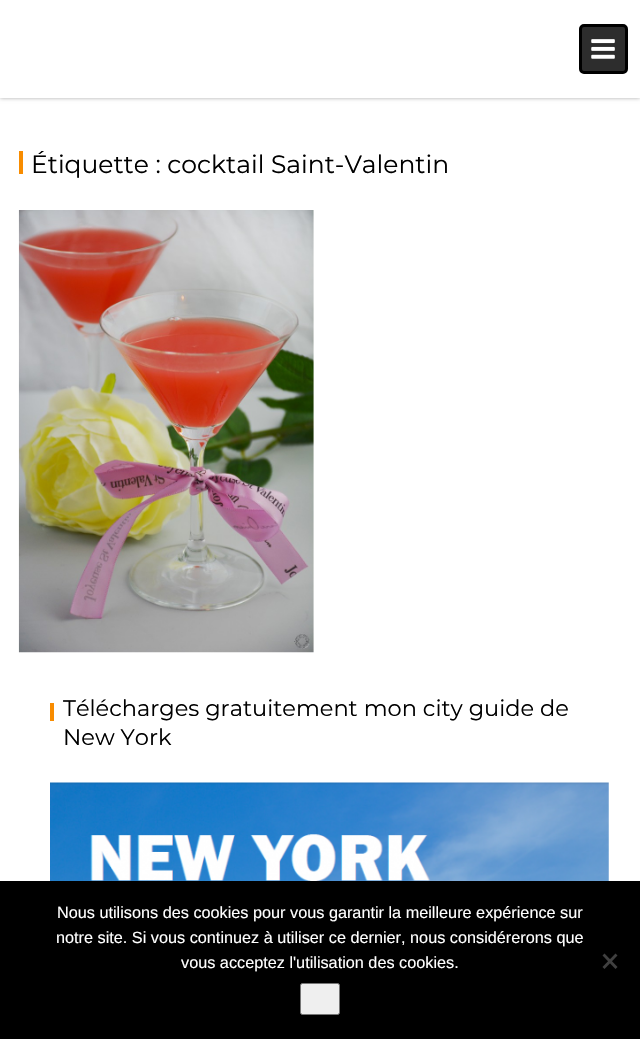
#include "include/core/SkBlurTypes.h"
#include "include/core/SkCanvas.h"
#include "include/core/SkData.h"
#include "include/core/SkFont.h"
#include "include/core/SkFontMgr.h"
#include "include/core/SkImage.h"
#include "include/core/SkMaskFilter.h"
#include "include/core/SkPaint.h"
#include "include/core/SkPathBuilder.h"
#include "include/core/SkTextBlob.h"
#include "include/effects/SkDashPathEffect.h"
#include "include/effects/SkGradientShader.h"
#include "include/utils/SkParsePath.h"

extern sk_sp<SkFontMgr> fontMgr;

void draw(SkCanvas* canvas) {
    SkPaint p;
    p.setAntiAlias(true);
    auto font = [&](const char* family, int weight, float size, bool italic = false) {
        SkFontStyle style(weight, SkFontStyle::kNormal_Width,
            italic ? SkFontStyle::kItalic_Slant : SkFontStyle::kUpright_Slant);
        SkFont result(fontMgr->matchFamilyStyle(family, style), size);
        result.setSubpixel(true);
        return result;
    };
    auto drawPhoto = [&](const char* path, float l, float t, float r, float b) {
        auto image = SkImages::DeferredFromEncodedData(SkData::MakeFromFileName(path));
        canvas->drawImageRect(image, SkRect::MakeLTRB(l, t, r, b), SkSamplingOptions());
    };
    canvas->clear(0xFFFFFFFF);
    p.setColor(0xFFAAAAAA);
    p.setMaskFilter(SkMaskFilter::MakeBlur(kNormal_SkBlurStyle, 2));
    canvas->drawRect(SkRect::MakeLTRB(0, 0, 640, 98), p);
    p.setMaskFilter(nullptr);
    p.setColor(0xFFFFFFFF);
    canvas->drawRect(SkRect::MakeLTRB(0, 0, 640, 98), p);
    p.setColor(0xFF2D2D2D);
    canvas->drawRoundRect(SkRect::MakeLTRB(580.5f, 25.5f, 626.5f, 72.5f), 3.5f, 3.5f, p);
    p.setStyle(SkPaint::kStroke_Style);
    p.setStrokeWidth(3);
    p.setColor(0xFF000000);
    canvas->drawRoundRect(SkRect::MakeLTRB(580.5f, 25.5f, 626.5f, 72.5f), 3.5f, 3.5f, p);
    drawPhoto("media/1.png", 591, 39, 615, 59);
    p.setStyle(SkPaint::kFill_Style);
    p.setColor(0xFFF88C00);
    canvas->drawRect(SkRect::MakeLTRB(19, 151, 23, 174), p);
    auto font1 = font("Montserrat", 400, 25);
    p.setColor(0xFF000000);
    canvas->drawString("Étiquette : cocktail Saint-Valentin", 31, 173, font1, p);
    drawPhoto("media/2.png", 18, 210, 314, 653);
    p.setColor(0xFFF88C00);
    canvas->drawRect(SkRect::MakeLTRB(50, 703, 54, 721), p);
    auto font2 = font("Montserrat", 400, 22.5f);
    p.setColor(0xFF000000);
    canvas->drawString("Télécharges gratuitement mon city guide de", 63, 716, font2, p);
    canvas->drawString("New York", 63, 745, font2, p);
    drawPhoto("media/3.png", 50, 782, 609, 881);
    canvas->drawRect(SkRect::MakeLTRB(0, 881, 640, 1039), p);
    auto font3 = font("Liberation Sans", 400, 16.25f);
    p.setColor(0xFFFFFFFF);
    {
        const struct { const char* s; float x, y; } items[] = {
            {"Nous utilisons des cookies pour vous garantir la meilleure expérience sur", 57, 918},
            {"notre site. Si vous continuez à utiliser ce dernier, nous considérerons que", 56, 943},
            {"vous acceptez l'utilisation des cookies.", 181, 968},
        };
        for (auto [s, x, y] : items) {
            canvas->drawString(s, x, y, font3, p);
        }
    }
    p.setColor(0xFF404040);
    canvas->drawPath(SkPathBuilder().moveTo(615.5f, 953.5f).lineTo(617.5f, 955.5f).lineTo(604.5f, 969).lineTo(602.5f, 967).close().detach(), p);
    canvas->drawPath(SkPathBuilder().moveTo(602.5f, 955.5f).lineTo(604.5f, 953.5f).lineTo(617.5f, 967).lineTo(615.5f, 969).close().detach(), p);
    p.setColor(0xFFEFEFEF);
    canvas->drawRoundRect(SkRect::MakeLTRB(300.5f, 983.5f, 339.5f, 1014.5f), 2, 2, p);
    p.setStyle(SkPaint::kStroke_Style);
    p.setStrokeWidth(1);
    p.setColor(0xFF767676);
    canvas->drawRoundRect(SkRect::MakeLTRB(300.5f, 983.5f, 339.5f, 1014.5f), 2, 2, p);
}
